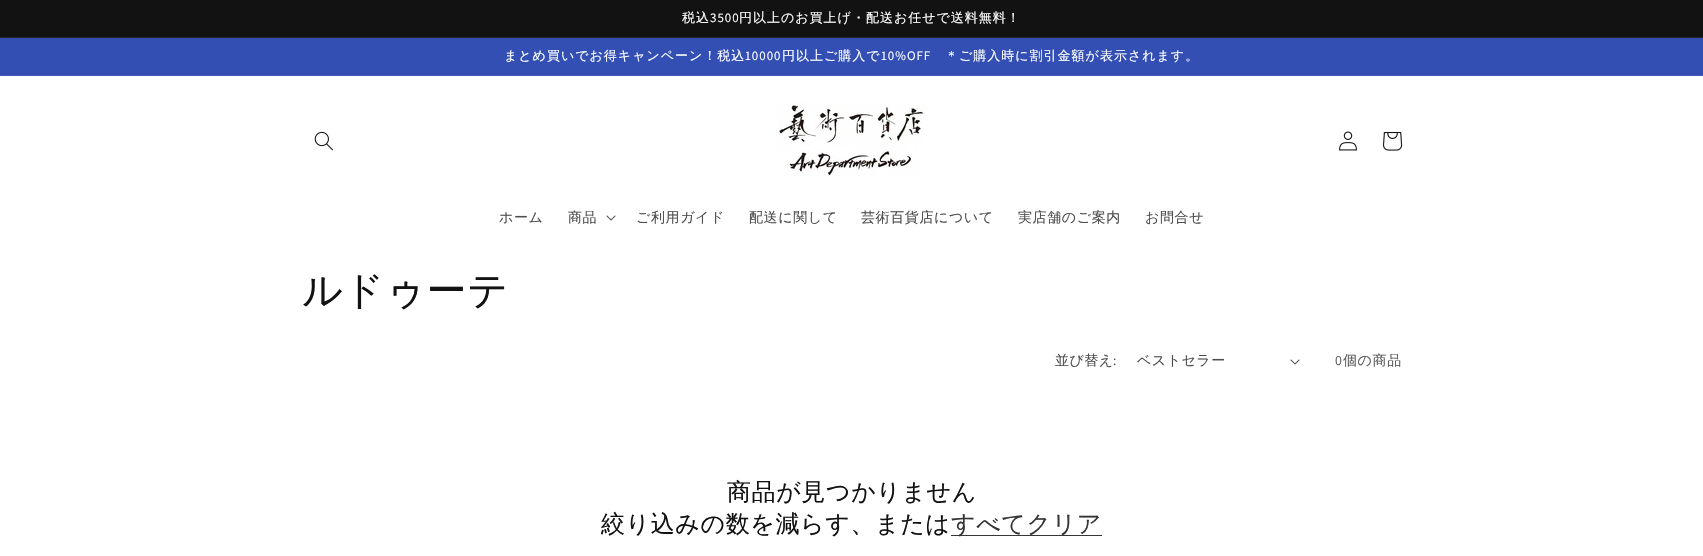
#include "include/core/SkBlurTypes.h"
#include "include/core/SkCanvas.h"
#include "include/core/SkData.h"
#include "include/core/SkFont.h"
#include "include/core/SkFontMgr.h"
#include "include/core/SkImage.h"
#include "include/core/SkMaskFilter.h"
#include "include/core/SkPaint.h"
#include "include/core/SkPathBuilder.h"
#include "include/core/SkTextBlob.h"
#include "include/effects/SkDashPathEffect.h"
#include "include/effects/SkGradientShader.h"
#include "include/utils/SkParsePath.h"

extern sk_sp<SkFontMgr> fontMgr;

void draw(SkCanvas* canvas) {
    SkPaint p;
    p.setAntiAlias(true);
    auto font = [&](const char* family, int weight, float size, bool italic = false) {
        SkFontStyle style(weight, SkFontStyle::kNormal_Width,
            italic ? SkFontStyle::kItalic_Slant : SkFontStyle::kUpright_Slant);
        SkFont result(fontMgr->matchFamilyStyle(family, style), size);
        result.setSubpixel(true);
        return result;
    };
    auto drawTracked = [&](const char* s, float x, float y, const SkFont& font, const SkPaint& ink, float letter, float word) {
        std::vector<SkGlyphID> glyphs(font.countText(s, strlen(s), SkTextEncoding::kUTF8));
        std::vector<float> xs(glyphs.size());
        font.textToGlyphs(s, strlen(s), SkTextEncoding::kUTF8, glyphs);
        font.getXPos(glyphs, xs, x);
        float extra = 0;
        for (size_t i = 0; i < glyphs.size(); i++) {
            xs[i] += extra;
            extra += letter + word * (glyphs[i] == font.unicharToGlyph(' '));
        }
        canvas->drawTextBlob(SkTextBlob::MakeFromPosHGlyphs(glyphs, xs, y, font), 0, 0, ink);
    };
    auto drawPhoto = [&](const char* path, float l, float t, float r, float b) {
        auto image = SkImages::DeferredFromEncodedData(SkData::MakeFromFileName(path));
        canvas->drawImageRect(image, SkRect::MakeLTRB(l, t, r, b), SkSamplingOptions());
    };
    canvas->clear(0xFFFFFFFF);
    p.setColor(0xFF121212);
    canvas->drawRect(SkRect::MakeLTRB(0, 0, 1703, 37), p);
    p.setColor(0xFF252525);
    canvas->drawRect(SkRect::MakeLTRB(0, 37, 1703, 38), p);
    auto font1 = font("WenQuanYi Zen Hei", 500, 13);
    p.setColor(0xFFFFFFFF);
    drawTracked("税込", 682, 22, font1, p, 1, 0);
    auto font2 = font("Assistant", 400, 13);
    drawTracked("3500", 710, 22, font2, p, 1, 0);
    drawTracked("円以上のお買上げ・配送お任せで送料無料！", 739, 22, font1, p, 1, 0);
    p.setColor(0xFF334FB4);
    canvas->drawRect(SkRect::MakeLTRB(0, 38, 1703, 75), p);
    p.setColor(0xFF435DBA);
    canvas->drawRect(SkRect::MakeLTRB(0, 75, 1703, 76), p);
    p.setColor(0xFFFFFFFF);
    drawTracked("まとめ買いでお得キャンペーン！税込", 504, 60, font1, p, 1, 0);
    drawTracked("10000", 745, 60, font2, p, 1, 0);
    drawTracked("円以上ご購入で", 782, 60, font1, p, 1, 0);
    drawTracked("10%OFF", 881, 60, font2, p, 1, 0);
    drawTracked("＊ご購入時に割引金額が表示されます。", 945, 60, font1, p, 1, 0);
    drawPhoto("media/1.png", 314, 131, 333, 151);
    drawPhoto("media/2.png", 777, 103, 924, 177);
    drawPhoto("media/3.png", 1339, 131, 1357, 151);
    drawPhoto("media/4.png", 1383, 132, 1403, 151);
    auto font3 = font("WenQuanYi Zen Hei", 500, 14);
    p.setColor(0xFF4D4D4D);
    drawTracked("ホーム", 499, 222, font3, p, 0.6f, 0);
    drawTracked("商品", 568, 222, font3, p, 0.6f, 0);
    drawPhoto("media/5.png", 606, 215, 616, 221);
    {
        const struct { const char* s; float x, y; } items[] = {
            {"ご利用ガイド", 636, 222},
            {"配送に関して", 749, 222},
            {"芸術百貨店について", 861, 222},
            {"実店舗のご案内", 1018, 222},
            {"お問合せ", 1145, 222},
        };
        for (auto [s, x, y] : items) {
            drawTracked(s, x, y, font3, p, 0.6f, 0);
        }
    }
    auto font4 = font("WenQuanYi Zen Hei", 500, 40);
    p.setColor(0xFF121212);
    drawTracked("ルドゥーテ", 302, 304, font4, p, 0.6f, 0);
    p.setColor(0xFF4D4D4D);
    drawTracked("並び替え", 1055, 365, font3, p, 0.5f, 0);
    auto font5 = font("Assistant", 400, 14);
    drawTracked(":", 1113, 365, font5, p, 0.5f, 0);
    drawTracked("ベストセラー", 1137, 365, font3, p, 0.5f, 0);
    drawPhoto("media/5.png", 1290, 359, 1300, 365);
    p.setColor(0xFF595959);
    drawTracked("0", 1335, 365, font5, p, 0.6f, 0);
    drawTracked("個の商品", 1343, 365, font3, p, 0.6f, 0);
    auto font6 = font("WenQuanYi Zen Hei", 500, 24);
    p.setColor(0xFF121212);
    drawTracked("商品が見つかりません", 727, 500, font6, p, 0.6f, 0);
    drawTracked("絞り込みの数を減らす、または", 601, 532, font6, p, 0.6f, 0);
    p.setColor(0xFF363636);
    canvas->drawRect(SkRect::MakeLTRB(951, 535, 1102, 536), p);
    p.setColor(0xFF353535);
    drawTracked("すべてクリア", 951, 532, font6, p, 0.6f, 0);
}
